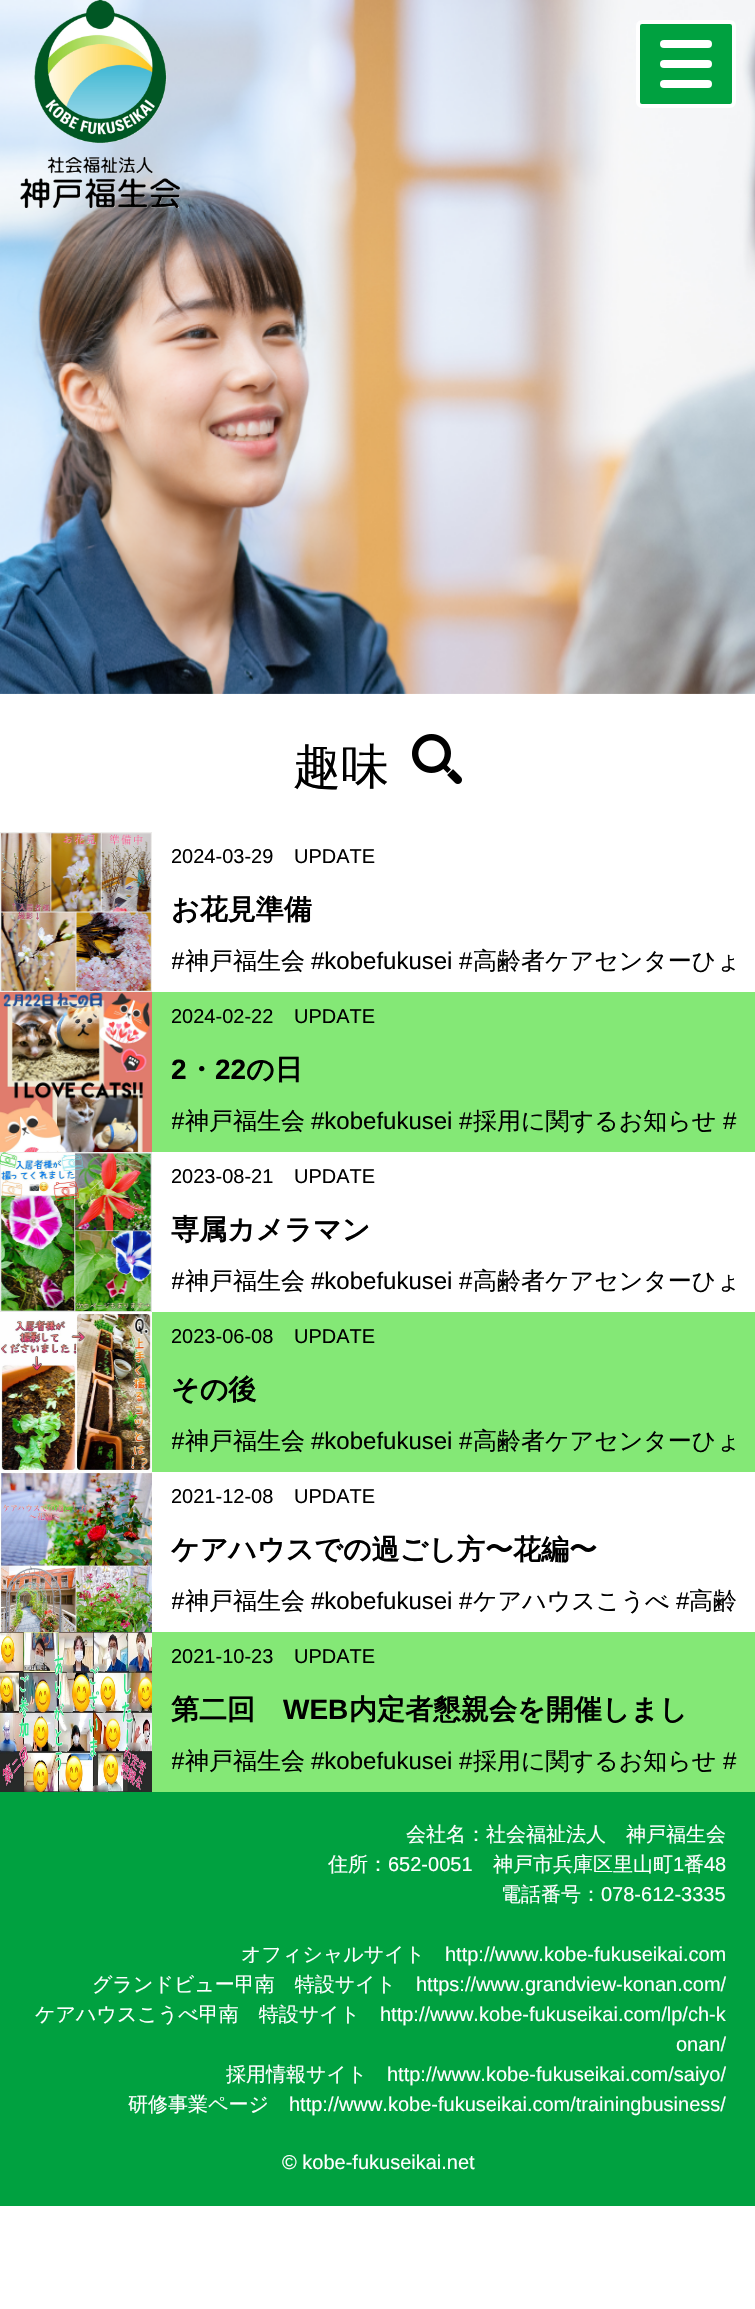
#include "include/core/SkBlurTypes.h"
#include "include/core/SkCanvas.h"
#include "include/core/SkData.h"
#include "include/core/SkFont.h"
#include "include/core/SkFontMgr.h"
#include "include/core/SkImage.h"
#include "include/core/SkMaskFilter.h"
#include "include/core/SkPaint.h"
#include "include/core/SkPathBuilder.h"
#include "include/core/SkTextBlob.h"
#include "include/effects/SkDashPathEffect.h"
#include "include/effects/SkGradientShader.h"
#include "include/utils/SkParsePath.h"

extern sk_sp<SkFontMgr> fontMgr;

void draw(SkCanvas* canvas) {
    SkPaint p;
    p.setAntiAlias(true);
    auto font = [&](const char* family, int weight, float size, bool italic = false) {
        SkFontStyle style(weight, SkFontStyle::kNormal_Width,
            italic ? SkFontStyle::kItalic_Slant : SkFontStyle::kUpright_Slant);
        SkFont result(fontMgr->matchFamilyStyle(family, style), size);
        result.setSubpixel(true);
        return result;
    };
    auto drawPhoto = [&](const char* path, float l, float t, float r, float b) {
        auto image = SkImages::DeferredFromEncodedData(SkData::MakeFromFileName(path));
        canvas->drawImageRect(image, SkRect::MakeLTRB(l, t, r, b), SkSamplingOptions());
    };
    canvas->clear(0xFFFFFFFF);
    drawPhoto("media/2.png", 0, 0, 755, 694);
    drawPhoto("media/1.png", 20, 0, 180, 208);
    p.setColor(0xFF00A140);
    canvas->drawRoundRect(SkRect::MakeLTRB(638, 22, 734, 106), 4, 4, p);
    p.setStyle(SkPaint::kStroke_Style);
    p.setStrokeWidth(4);
    p.setColor(0xFFFFFFFF);
    canvas->drawRoundRect(SkRect::MakeLTRB(638, 22, 734, 106), 4, 4, p);
    p.setStyle(SkPaint::kFill_Style);
    canvas->drawRoundRect(SkRect::MakeLTRB(660, 40, 712, 48), 4, 4, p);
    canvas->drawRoundRect(SkRect::MakeLTRB(660, 60, 712, 68), 4, 4, p);
    canvas->drawRoundRect(SkRect::MakeLTRB(660, 80, 712, 88), 4, 4, p);
    auto font1 = font("WenQuanYi Zen Hei", 500, 48);
    p.setColor(0xFF000000);
    canvas->drawString("趣味", 293, 783, font1, p);
    drawPhoto("media/3.png", 412, 734, 462, 784);
    drawPhoto("media/4.png", 0, 832, 152, 992);
    auto font2 = font("Liberation Sans", 400, 20);
    canvas->drawString("2024-03-29", 171, 863, font2, p);
    canvas->drawString("UPDATE", 294, 863, font2, p);
    auto font3 = font("WenQuanYi Zen Hei", 700, 28);
    canvas->drawString("お花見準備", 171, 919, font3, p);
    canvas->save();
    canvas->clipRect(SkRect::MakeLTRB(172, 944, 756, 980));
    auto font4 = font("Liberation Sans", 400, 24);
    canvas->drawString("#", 171, 969, font4, p);
    canvas->restore();
    auto font5 = font("WenQuanYi Zen Hei", 500, 24);
    canvas->drawString("神戸福生会", 185, 969, font5, p);
    canvas->drawString("#kobefukusei #", 311, 969, font4, p);
    canvas->drawString("高齢者ケアセンターひょ", 473, 969, font5, p);
    p.setColor(0xFF84E876);
    canvas->drawRect(SkRect::MakeLTRB(152, 992, 755, 1152), p);
    drawPhoto("media/5.png", 0, 992, 152, 1152);
    p.setColor(0xFF000000);
    canvas->drawString("2024-02-22", 171, 1023, font2, p);
    canvas->drawString("UPDATE", 294, 1023, font2, p);
    auto font6 = font("Liberation Sans", 700, 28);
    canvas->drawString("2", 171, 1079, font6, p);
    canvas->drawString("・", 187, 1079, font3, p);
    canvas->drawString("22", 215, 1079, font6, p);
    canvas->drawString("の日", 246, 1079, font3, p);
    canvas->save();
    canvas->clipRect(SkRect::MakeLTRB(172, 1104, 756, 1140));
    canvas->drawString("#", 171, 1129, font4, p);
    canvas->restore();
    canvas->drawString("神戸福生会", 185, 1129, font5, p);
    canvas->drawString("#kobefukusei #", 311, 1129, font4, p);
    canvas->drawString("採用に関するお知らせ", 473, 1129, font5, p);
    canvas->drawString("#", 723, 1129, font4, p);
    drawPhoto("media/6.png", 0, 1152, 152, 1312);
    canvas->drawString("2023-08-21", 171, 1183, font2, p);
    canvas->drawString("UPDATE", 294, 1183, font2, p);
    canvas->drawString("専属カメラマン", 171, 1239, font3, p);
    canvas->save();
    canvas->clipRect(SkRect::MakeLTRB(172, 1264, 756, 1300));
    canvas->drawString("#", 171, 1289, font4, p);
    canvas->restore();
    canvas->drawString("神戸福生会", 185, 1289, font5, p);
    canvas->drawString("#kobefukusei #", 311, 1289, font4, p);
    canvas->drawString("高齢者ケアセンターひょ", 473, 1289, font5, p);
    p.setColor(0xFF84E876);
    canvas->drawRect(SkRect::MakeLTRB(152, 1312, 755, 1472), p);
    drawPhoto("media/7.png", 0, 1312, 152, 1472);
    p.setColor(0xFF000000);
    canvas->drawString("2023-06-08", 171, 1343, font2, p);
    canvas->drawString("UPDATE", 294, 1343, font2, p);
    canvas->drawString("その後", 171, 1399, font3, p);
    canvas->save();
    canvas->clipRect(SkRect::MakeLTRB(172, 1424, 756, 1460));
    canvas->drawString("#", 171, 1449, font4, p);
    canvas->restore();
    canvas->drawString("神戸福生会", 185, 1449, font5, p);
    canvas->drawString("#kobefukusei #", 311, 1449, font4, p);
    canvas->drawString("高齢者ケアセンターひょ", 473, 1449, font5, p);
    drawPhoto("media/8.png", 0, 1472, 152, 1632);
    canvas->drawString("2021-12-08", 171, 1503, font2, p);
    canvas->drawString("UPDATE", 294, 1503, font2, p);
    canvas->drawString("ケアハウスでの過ごし方〜花編〜", 171, 1559, font3, p);
    canvas->save();
    canvas->clipRect(SkRect::MakeLTRB(172, 1584, 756, 1620));
    canvas->drawString("#", 171, 1609, font4, p);
    canvas->restore();
    canvas->drawString("神戸福生会", 185, 1609, font5, p);
    canvas->drawString("#kobefukusei #", 311, 1609, font4, p);
    canvas->drawString("ケアハウスこうべ", 473, 1609, font5, p);
    canvas->drawString("#", 676, 1609, font4, p);
    canvas->drawString("高齢", 689, 1609, font5, p);
    p.setColor(0xFF84E876);
    canvas->drawRect(SkRect::MakeLTRB(152, 1632, 755, 1792), p);
    drawPhoto("media/9.png", 0, 1632, 152, 1792);
    p.setColor(0xFF000000);
    canvas->drawString("2021-10-23", 171, 1663, font2, p);
    canvas->drawString("UPDATE", 294, 1663, font2, p);
    canvas->drawString("第二回", 171, 1719, font3, p);
    canvas->drawString("WEB", 283, 1719, font6, p);
    canvas->drawString("内定者懇親会を開催しまし", 349, 1719, font3, p);
    canvas->save();
    canvas->clipRect(SkRect::MakeLTRB(172, 1744, 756, 1780));
    canvas->drawString("#", 171, 1769, font4, p);
    canvas->restore();
    canvas->drawString("神戸福生会", 185, 1769, font5, p);
    canvas->drawString("#kobefukusei #", 311, 1769, font4, p);
    canvas->drawString("採用に関するお知らせ", 473, 1769, font5, p);
    canvas->drawString("#", 723, 1769, font4, p);
    p.setColor(0xFF00A140);
    canvas->drawRect(SkRect::MakeLTRB(0, 1792, 755, 2206), p);
    auto font7 = font("WenQuanYi Zen Hei", 500, 20);
    p.setColor(0xFFFFFFFF);
    canvas->drawString("会社名：社会福祉法人　神戸福生会", 406, 1841, font7, p);
    canvas->drawString("住所：", 328, 1871, font7, p);
    canvas->drawString("652-0051", 388, 1871, font2, p);
    canvas->drawString("神戸市兵庫区里山町", 493, 1871, font7, p);
    canvas->drawString("1", 673, 1871, font2, p);
    canvas->drawString("番", 684, 1871, font7, p);
    canvas->drawString("48", 704, 1871, font2, p);
    canvas->drawString("電話番号：", 501, 1901, font7, p);
    canvas->drawString("078-612-3335", 601, 1901, font2, p);
    canvas->drawString("オフィシャルサイト", 241, 1961, font7, p);
    canvas->drawString("http://www.kobe-fukuseikai.com", 445, 1961, font2, p);
    canvas->drawString("グランドビュー甲南　特設サイト", 92, 1991, font7, p);
    canvas->drawString("https://www.grandview-konan.com/", 416, 1991, font2, p);
    canvas->drawString("ケアハウスこうべ甲南　特設サイト", 35, 2021, font7, p);
    canvas->drawString("http://www.kobe-fukuseikai.com/lp/ch-k", 380, 2021, font2, p);
    canvas->drawString("onan/", 676, 2051, font2, p);
    canvas->drawString("採用情報サイト", 226, 2081, font7, p);
    canvas->drawString("http://www.kobe-fukuseikai.com/saiyo/", 387, 2081, font2, p);
    canvas->drawString("研修事業ページ", 128, 2111, font7, p);
    canvas->drawString("http://www.kobe-fukuseikai.com/trainingbusiness/", 289, 2111, font2, p);
    canvas->drawString("© kobe-fukuseikai.net", 282, 2169, font2, p);
}
